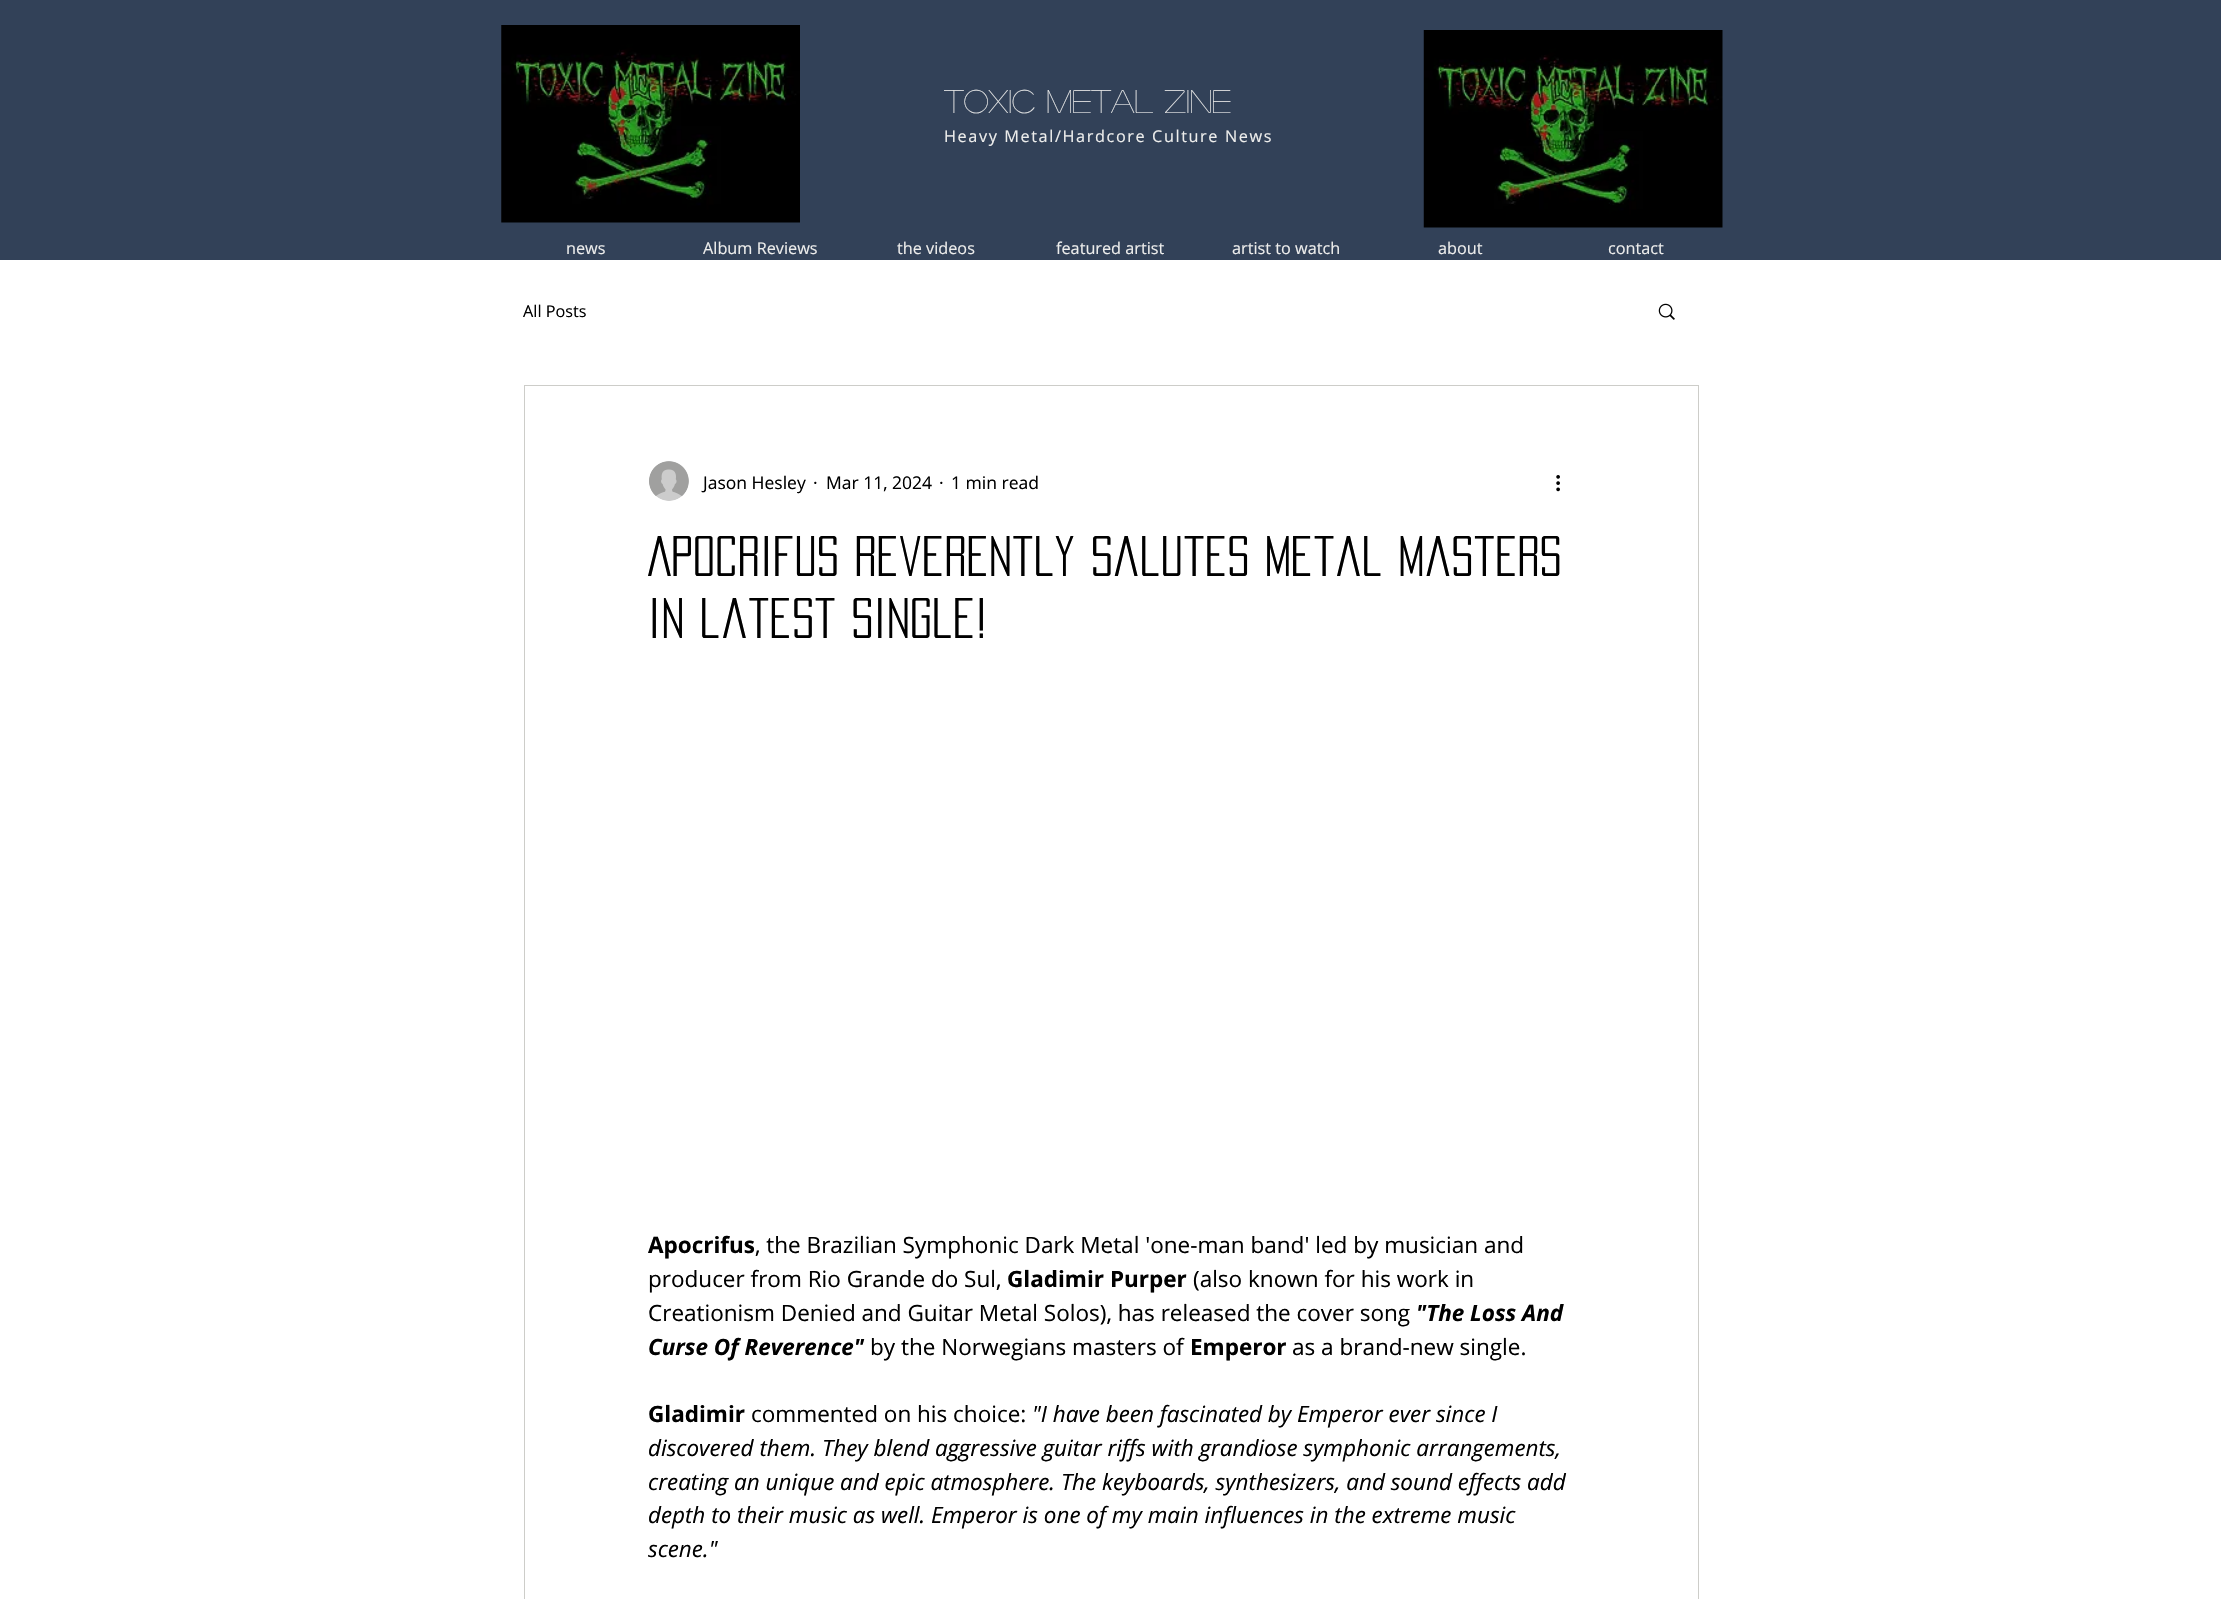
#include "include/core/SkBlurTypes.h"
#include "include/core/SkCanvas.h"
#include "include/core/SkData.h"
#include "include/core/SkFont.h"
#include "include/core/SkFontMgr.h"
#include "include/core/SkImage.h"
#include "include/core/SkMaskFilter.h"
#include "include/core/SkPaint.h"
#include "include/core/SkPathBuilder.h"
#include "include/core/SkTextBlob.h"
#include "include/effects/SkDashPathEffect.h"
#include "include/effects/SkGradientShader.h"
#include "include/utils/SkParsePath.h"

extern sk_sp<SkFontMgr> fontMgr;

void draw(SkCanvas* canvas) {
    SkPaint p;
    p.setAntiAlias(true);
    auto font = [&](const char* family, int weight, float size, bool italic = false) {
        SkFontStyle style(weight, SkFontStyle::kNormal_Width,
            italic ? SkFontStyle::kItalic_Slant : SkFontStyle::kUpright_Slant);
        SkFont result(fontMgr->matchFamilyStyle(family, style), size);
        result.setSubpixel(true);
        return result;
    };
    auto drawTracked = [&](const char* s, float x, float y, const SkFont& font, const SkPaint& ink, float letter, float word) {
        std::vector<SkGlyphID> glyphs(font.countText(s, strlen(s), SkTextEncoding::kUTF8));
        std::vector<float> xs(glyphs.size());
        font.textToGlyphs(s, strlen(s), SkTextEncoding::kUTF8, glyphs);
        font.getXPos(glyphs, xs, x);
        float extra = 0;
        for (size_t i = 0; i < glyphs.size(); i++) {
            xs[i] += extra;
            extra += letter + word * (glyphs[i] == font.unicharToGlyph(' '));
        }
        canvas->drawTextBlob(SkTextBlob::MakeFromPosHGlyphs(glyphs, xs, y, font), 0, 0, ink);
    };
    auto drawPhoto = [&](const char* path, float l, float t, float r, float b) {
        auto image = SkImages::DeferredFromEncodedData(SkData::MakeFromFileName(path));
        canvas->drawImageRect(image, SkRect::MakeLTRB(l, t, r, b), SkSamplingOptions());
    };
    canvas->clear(0xFFFFFFFF);
    p.setColor(0xFF324158);
    canvas->drawRect(SkRect::MakeLTRB(0, 0, 2221, 260), p);
    drawPhoto("media/1.png", 501, 25, 800, 223);
    auto font1 = font("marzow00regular", 400, 32.5f);
    p.setColor(0xFFEDEDEC);
    canvas->drawString("Toxic Metal Zine", 944, 113, font1, p);
    auto font2 = font("Open Sans", 400, 16.25f);
    drawTracked("Heavy Metal/Hardcore Culture News", 944, 142, font2, p, 1.6f, 0);
    drawPhoto("media/2.png", 1423, 30, 1723, 228);
    {
        const struct { const char* s; float x, y; } items[] = {
            {"news", 566, 254},
            {"Album Reviews", 703, 254},
            {"the videos", 897, 254},
            {"featured artist", 1056, 254},
            {"artist to watch", 1232, 254},
            {"about", 1438, 254},
            {"contact", 1608, 254},
        };
        for (auto [s, x, y] : items) {
            canvas->drawString(s, x, y, font2, p);
        }
    }
    p.setColor(0xFF000000);
    canvas->drawString("All Posts", 523, 317, font2, p);
    drawPhoto("media/3.png", 1658, 303, 1675, 320);
    p.setStyle(SkPaint::kStroke_Style);
    p.setStrokeWidth(1);
    p.setColor(0xFFCDCDC9);
    canvas->drawRect(SkRect::MakeLTRB(524.5f, 385.5f, 1698.5f, 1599.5f), p);
    drawPhoto("media/4.png", 649, 461, 689, 501);
    auto font3 = font("Open Sans", 400, 17.5f);
    p.setStyle(SkPaint::kFill_Style);
    p.setColor(0xFF000000);
    {
        const struct { const char* s; float x, y; } items[] = {
            {"Jason Hesley", 703, 489},
            {"·", 813, 489},
            {"Mar 11, 2024", 826, 489},
            {"·", 939, 489},
            {"1 min read", 951, 489},
        };
        for (auto [s, x, y] : items) {
            canvas->drawString(s, x, y, font3, p);
        }
    }
    drawPhoto("media/5.png", 1556, 475, 1560, 492);
    auto font4 = font("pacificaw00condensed", 400, 50);
    canvas->drawString("Apocrifus reverently salutes metal masters", 648, 576, font4, p);
    canvas->drawString("in latest single!", 648, 638, font4, p);
    auto font5 = font("Open Sans", 700, 22.5f);
    canvas->drawString("Apocrifus", 648, 1253, font5, p);
    auto font6 = font("Open Sans", 400, 22.5f);
    canvas->drawString(", the Brazilian Symphonic Dark Metal 'one-man band' led by musician and", 755, 1253, font6, p);
    canvas->drawString("producer from Rio Grande do Sul,", 648, 1287, font6, p);
    canvas->drawString("Gladimir Purper", 1007, 1287, font5, p);
    canvas->drawString("(also known for his work in", 1193, 1287, font6, p);
    canvas->drawString("Creationism Denied and Guitar Metal Solos), has released the cover song", 648, 1321, font6, p);
    auto font7 = font("Open Sans", 700, 22.5f, true);
    canvas->drawString("\"The Loss And", 1416, 1321, font7, p);
    canvas->drawString("Curse Of Reverence\"", 648, 1355, font7, p);
    canvas->drawString("by the Norwegians masters of", 870, 1355, font6, p);
    canvas->drawString("Emperor", 1190, 1355, font5, p);
    canvas->drawString("as a brand-new single.", 1292, 1355, font6, p);
    canvas->drawString("Gladimir", 648, 1422, font5, p);
    canvas->drawString("commented on his choice:", 751, 1422, font6, p);
    auto font8 = font("Open Sans", 400, 22.5f, true);
    {
        const struct { const char* s; float x, y; } items[] = {
            {"\"I have been fascinated by Emperor ever since I", 1032, 1422},
            {"discovered them. They blend aggressive guitar riffs with grandiose symphonic arrangements,", 648, 1456},
            {"creating an unique and epic atmosphere. The keyboards, synthesizers, and sound effects add", 648, 1490},
            {"depth to their music as well. Emperor is one of my main influences in the extreme music", 648, 1523},
            {"scene.\"", 648, 1557},
        };
        for (auto [s, x, y] : items) {
            canvas->drawString(s, x, y, font8, p);
        }
    }
}
